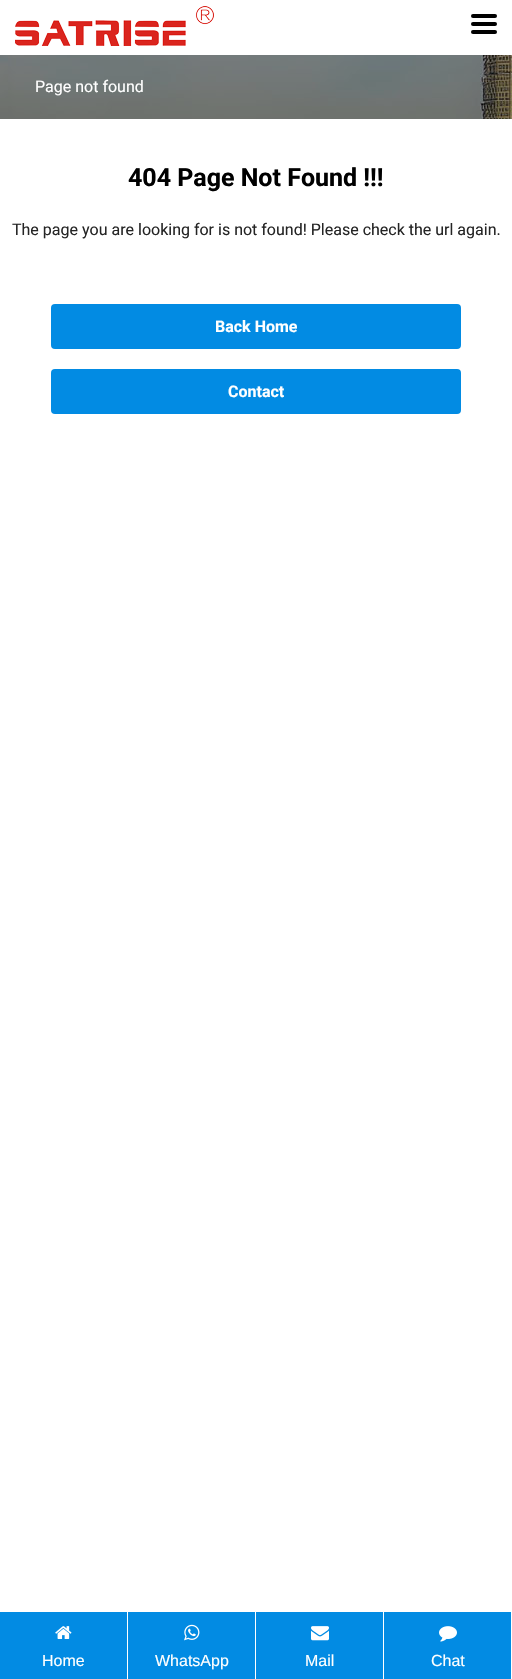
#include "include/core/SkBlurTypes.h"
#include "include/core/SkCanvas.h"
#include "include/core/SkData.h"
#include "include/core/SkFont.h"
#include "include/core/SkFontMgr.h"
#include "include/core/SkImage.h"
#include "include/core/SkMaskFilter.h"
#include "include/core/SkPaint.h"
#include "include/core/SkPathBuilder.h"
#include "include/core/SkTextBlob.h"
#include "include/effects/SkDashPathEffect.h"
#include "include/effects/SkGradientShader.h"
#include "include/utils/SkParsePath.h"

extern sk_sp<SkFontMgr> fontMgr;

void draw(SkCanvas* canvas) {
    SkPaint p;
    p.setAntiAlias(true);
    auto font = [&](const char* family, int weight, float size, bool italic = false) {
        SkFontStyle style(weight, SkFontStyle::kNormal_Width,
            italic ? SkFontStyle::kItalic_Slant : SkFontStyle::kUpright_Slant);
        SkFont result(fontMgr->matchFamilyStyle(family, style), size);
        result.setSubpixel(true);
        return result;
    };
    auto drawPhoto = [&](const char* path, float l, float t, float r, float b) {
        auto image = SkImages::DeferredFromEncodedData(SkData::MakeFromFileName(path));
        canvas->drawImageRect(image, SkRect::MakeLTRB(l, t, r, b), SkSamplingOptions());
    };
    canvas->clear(0xFFFFFFFF);
    drawPhoto("media/1.png", 15, 6, 214, 46);
    p.setColor(0xFF000000);
    canvas->drawRoundRect(SkRect::MakeLTRB(471, 22, 497, 26), 2, 2, p);
    canvas->drawRoundRect(SkRect::MakeLTRB(471, 14, 497, 18), 2, 2, p);
    canvas->drawRoundRect(SkRect::MakeLTRB(471, 30, 497, 34), 2, 2, p);
    drawPhoto("media/2.png", 0, 55, 512, 119);
    auto font1 = font("Roboto", 400, 16);
    p.setColor(0xFFFFFFFF);
    canvas->drawString("Page not found", 35, 92, font1, p);
    auto font2 = font("Roboto", 700, 25);
    p.setColor(0xFF000000);
    canvas->drawString("404 Page Not Found !!!", 128, 186, font2, p);
    p.setColor(0xFF252525);
    canvas->drawString("The page you are looking for is not found! Please check the url again.", 12, 235, font1, p);
    p.setColor(0xFF028BE3);
    canvas->drawRoundRect(SkRect::MakeLTRB(51, 304, 461, 349), 4, 4, p);
    auto font3 = font("Roboto", 700, 16);
    p.setColor(0xFFFFFFFF);
    canvas->drawString("Back Home", 215, 332, font3, p);
    p.setColor(0xFF028BE3);
    canvas->drawRoundRect(SkRect::MakeLTRB(51, 369, 461, 414), 4, 4, p);
    p.setColor(0xFFFFFFFF);
    canvas->drawString("Contact", 228, 397, font3, p);
    p.setColor(0xFF028BE3);
    canvas->drawRect(SkRect::MakeLTRB(0, 1612, 127, 1679), p);
    drawPhoto("media/3.png", 55, 1626, 72, 1639);
    auto font4 = font("Liberation Sans", 400, 16);
    p.setColor(0xFFFFFFFF);
    canvas->drawString("Home", 42, 1666, font4, p);
    p.setColor(0xFF028BE3);
    canvas->drawRect(SkRect::MakeLTRB(128, 1612, 255, 1679), p);
    drawPhoto("media/4.png", 184, 1624, 200, 1641);
    p.setColor(0xFFFFFFFF);
    canvas->drawString("WhatsApp", 155, 1666, font4, p);
    p.setColor(0xFF028BE3);
    canvas->drawRect(SkRect::MakeLTRB(256, 1612, 383, 1679), p);
    drawPhoto("media/5.png", 311, 1626, 329, 1641);
    p.setColor(0xFFFFFFFF);
    canvas->drawString("Mail", 305, 1666, font4, p);
    p.setColor(0xFF028BE3);
    canvas->drawRect(SkRect::MakeLTRB(384, 1612, 511, 1679), p);
    drawPhoto("media/6.png", 439, 1626, 457, 1642);
    p.setColor(0xFFFFFFFF);
    canvas->drawString("Chat", 431, 1666, font4, p);
}
